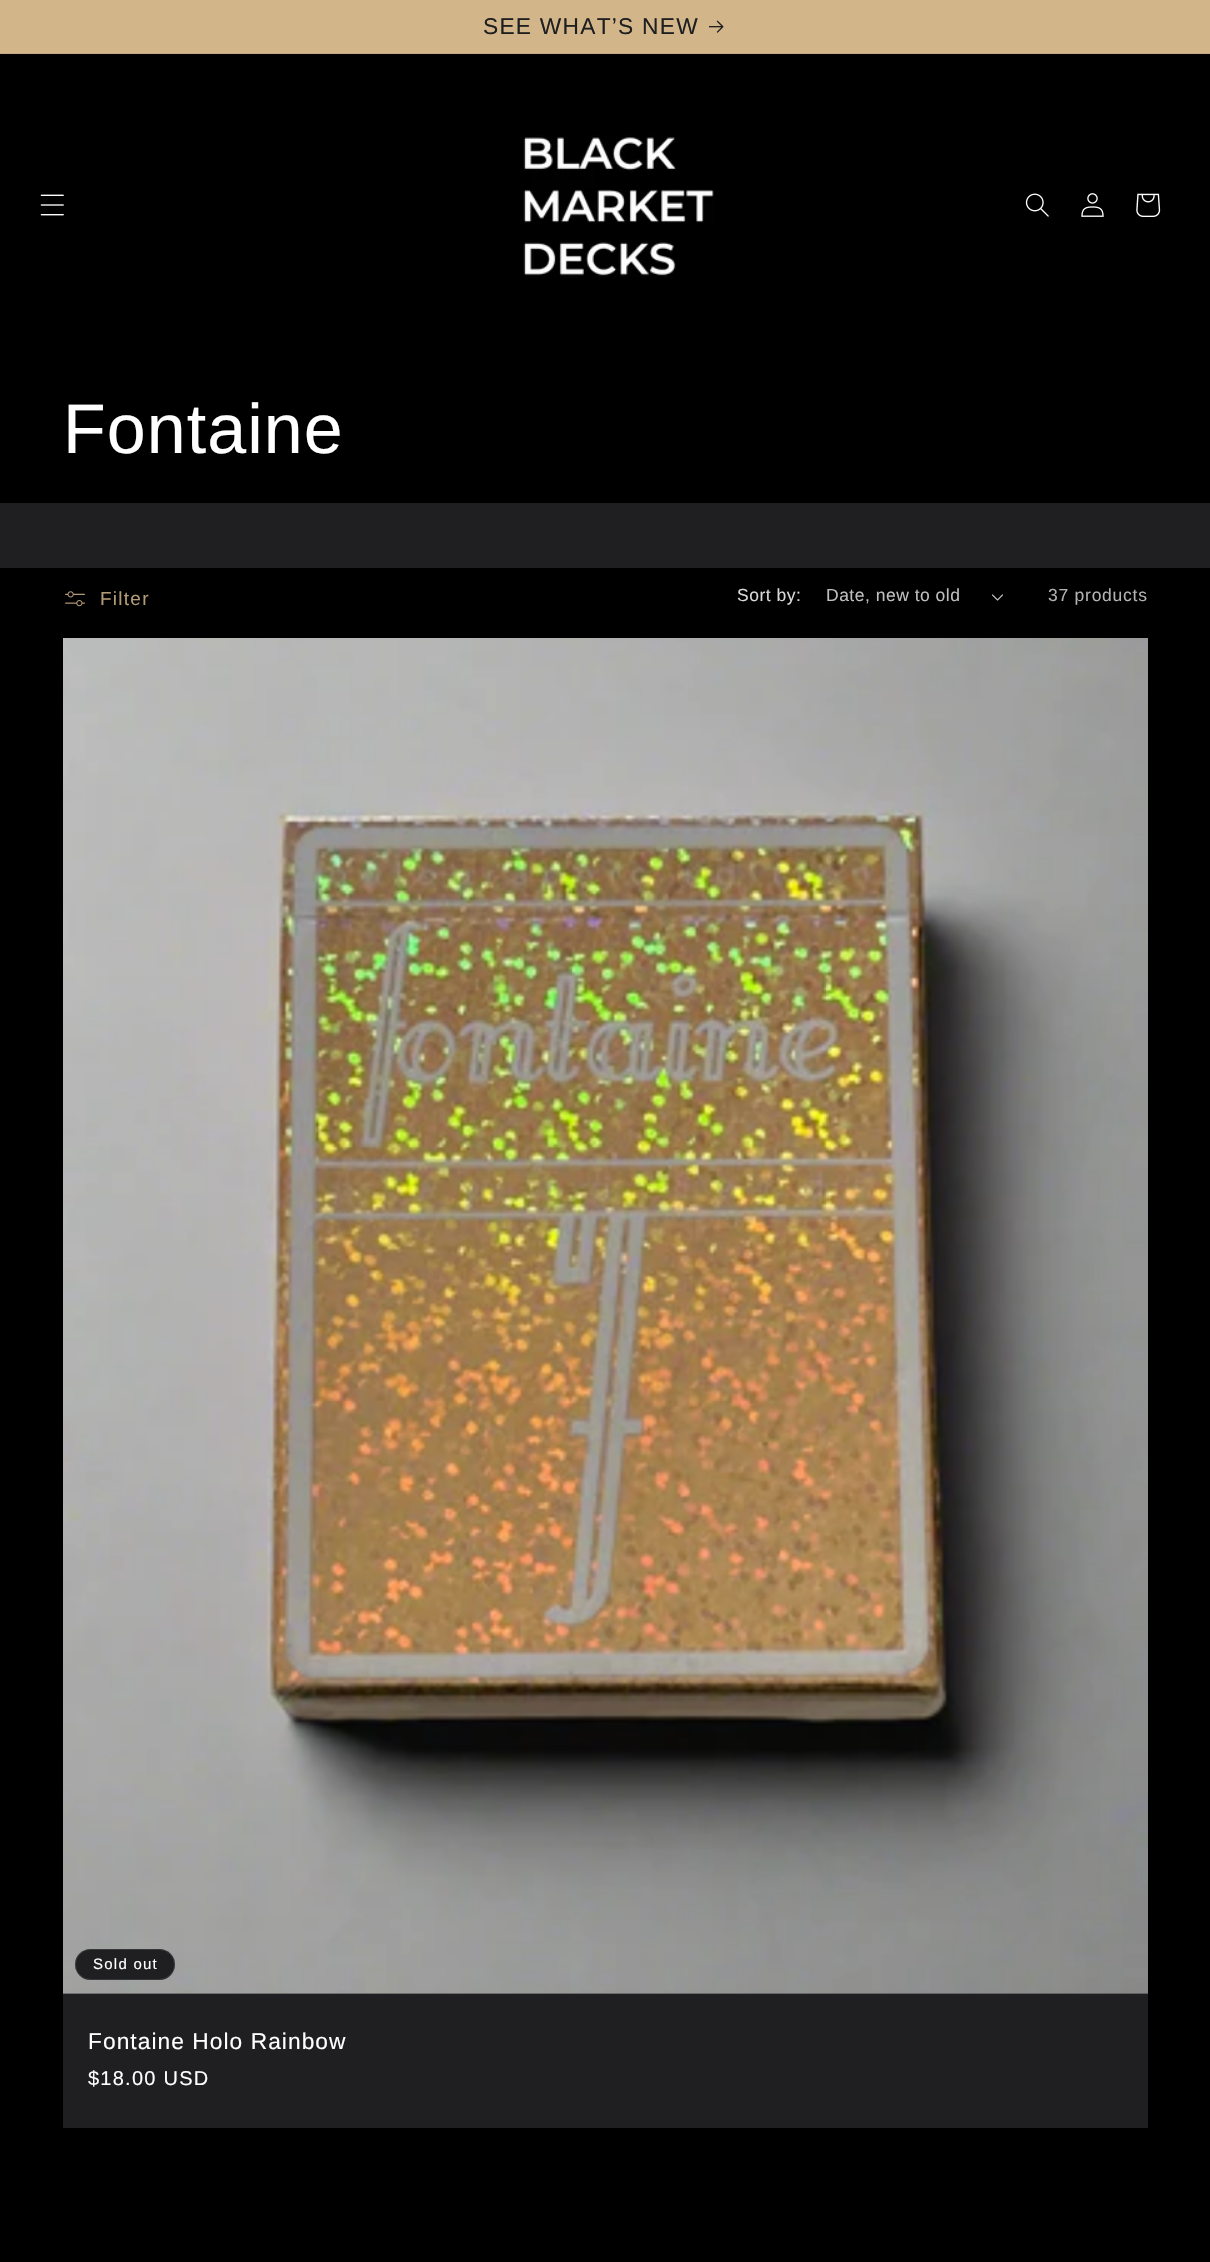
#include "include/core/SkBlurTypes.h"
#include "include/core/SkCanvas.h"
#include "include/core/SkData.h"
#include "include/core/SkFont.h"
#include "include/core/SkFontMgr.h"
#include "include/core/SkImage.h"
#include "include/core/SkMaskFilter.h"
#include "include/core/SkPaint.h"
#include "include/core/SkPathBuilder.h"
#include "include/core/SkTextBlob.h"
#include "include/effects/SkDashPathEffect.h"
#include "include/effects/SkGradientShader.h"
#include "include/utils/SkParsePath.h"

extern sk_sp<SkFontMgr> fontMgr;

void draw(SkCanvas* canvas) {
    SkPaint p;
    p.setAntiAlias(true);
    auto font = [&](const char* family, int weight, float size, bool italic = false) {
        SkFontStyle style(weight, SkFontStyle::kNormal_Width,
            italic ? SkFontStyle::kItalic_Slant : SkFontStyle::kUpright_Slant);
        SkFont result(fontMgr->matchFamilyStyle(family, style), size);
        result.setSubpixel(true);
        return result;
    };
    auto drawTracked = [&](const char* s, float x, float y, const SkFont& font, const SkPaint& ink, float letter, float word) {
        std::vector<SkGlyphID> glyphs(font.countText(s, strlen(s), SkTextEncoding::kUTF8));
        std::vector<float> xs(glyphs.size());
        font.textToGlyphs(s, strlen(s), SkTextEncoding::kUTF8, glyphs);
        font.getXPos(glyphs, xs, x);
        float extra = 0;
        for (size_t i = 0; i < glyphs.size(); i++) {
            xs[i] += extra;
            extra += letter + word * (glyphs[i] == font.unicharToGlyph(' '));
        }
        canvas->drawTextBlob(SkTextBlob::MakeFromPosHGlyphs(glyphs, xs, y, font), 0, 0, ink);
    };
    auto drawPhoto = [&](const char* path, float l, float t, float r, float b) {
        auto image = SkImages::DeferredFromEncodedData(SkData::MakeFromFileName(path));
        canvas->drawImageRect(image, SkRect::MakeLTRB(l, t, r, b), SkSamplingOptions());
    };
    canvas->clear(0xFF1F1F21);
    p.setColor(0xFFD2B68A);
    canvas->drawRect(SkRect::MakeLTRB(0, 0, 1210, 53), p);
    p.setColor(0xFFC4AA82);
    canvas->drawRect(SkRect::MakeLTRB(0, 53, 1210, 54), p);
    auto font1 = font("Liberation Sans", 400, 22.75f);
    p.setColor(0xFF1F1F21);
    drawTracked("SEE WHAT’S NEW", 483, 34, font1, p, 1.25f, 0);
    drawPhoto("media/1.png", 709, 20, 724, 33);
    p.setColor(0xFF000000);
    canvas->drawRect(SkRect::MakeLTRB(0, 54, 1210, 503), p);
    drawPhoto("media/2.png", 40, 194, 64, 216);
    drawPhoto("media/3.png", 523, 135, 714, 278);
    drawPhoto("media/4.png", 1025, 193, 1049, 217);
    drawPhoto("media/5.png", 1081, 193, 1104, 217);
    drawPhoto("media/6.png", 1136, 193, 1161, 217);
    auto font2 = font("Liberation Sans", 400, 70);
    p.setColor(0xFFFFFFFF);
    drawTracked("Fontaine", 63, 453, font2, p, 1.05f, 0);
    p.setColor(0xFF000000);
    canvas->drawRect(SkRect::MakeLTRB(0, 568, 1210, 2262), p);
    drawPhoto("media/7.png", 65, 591, 85, 607);
    auto font3 = font("Liberation Sans", 400, 19);
    p.setColor(0xFFB39B75);
    drawTracked("Filter", 100, 605, font3, p, 1.25f, 0);
    auto font4 = font("Liberation Sans", 400, 17.5f);
    p.setColor(0xFFD9D9D9);
    drawTracked("Sort by:", 737, 601, font4, p, 0.5f, 0);
    p.setColor(0xFFBFBFBF);
    drawTracked("Date, new to old", 826, 601, font4, p, 0.5f, 0);
    drawPhoto("media/8.png", 992, 594, 1003, 601);
    p.setColor(0xFFB3B3B3);
    drawTracked("37 products", 1048, 601, font4, p, 0.75f, 0);
    p.setColor(0xFF1F1F21);
    canvas->drawRect(SkRect::MakeLTRB(63, 1993, 1148, 2128), p);
    drawPhoto("media/9.png", 63, 638, 1148, 1994);
    canvas->drawRoundRect(SkRect::MakeLTRB(75, 1949, 175, 1980), 15.5f, 15.5f, p);
    p.setStyle(SkPaint::kStroke_Style);
    p.setStrokeWidth(1);
    p.setColor(0x1AFFFFFF);
    canvas->drawRoundRect(SkRect::MakeLTRB(75.5f, 1949.5f, 174.5f, 1979.5f), 15, 15, p);
    auto font5 = font("Liberation Sans", 400, 15);
    p.setStyle(SkPaint::kFill_Style);
    p.setColor(0xFFFFFFFF);
    drawTracked("Sold out", 93, 1969, font5, p, 1.25f, 0);
    drawTracked("Fontaine Holo Rainbow", 88, 2049, font1, p, 1.05f, 0);
    auto font6 = font("Liberation Sans", 400, 20);
    drawTracked("$18.00 USD", 88, 2085, font6, p, 1.25f, 0);
}
